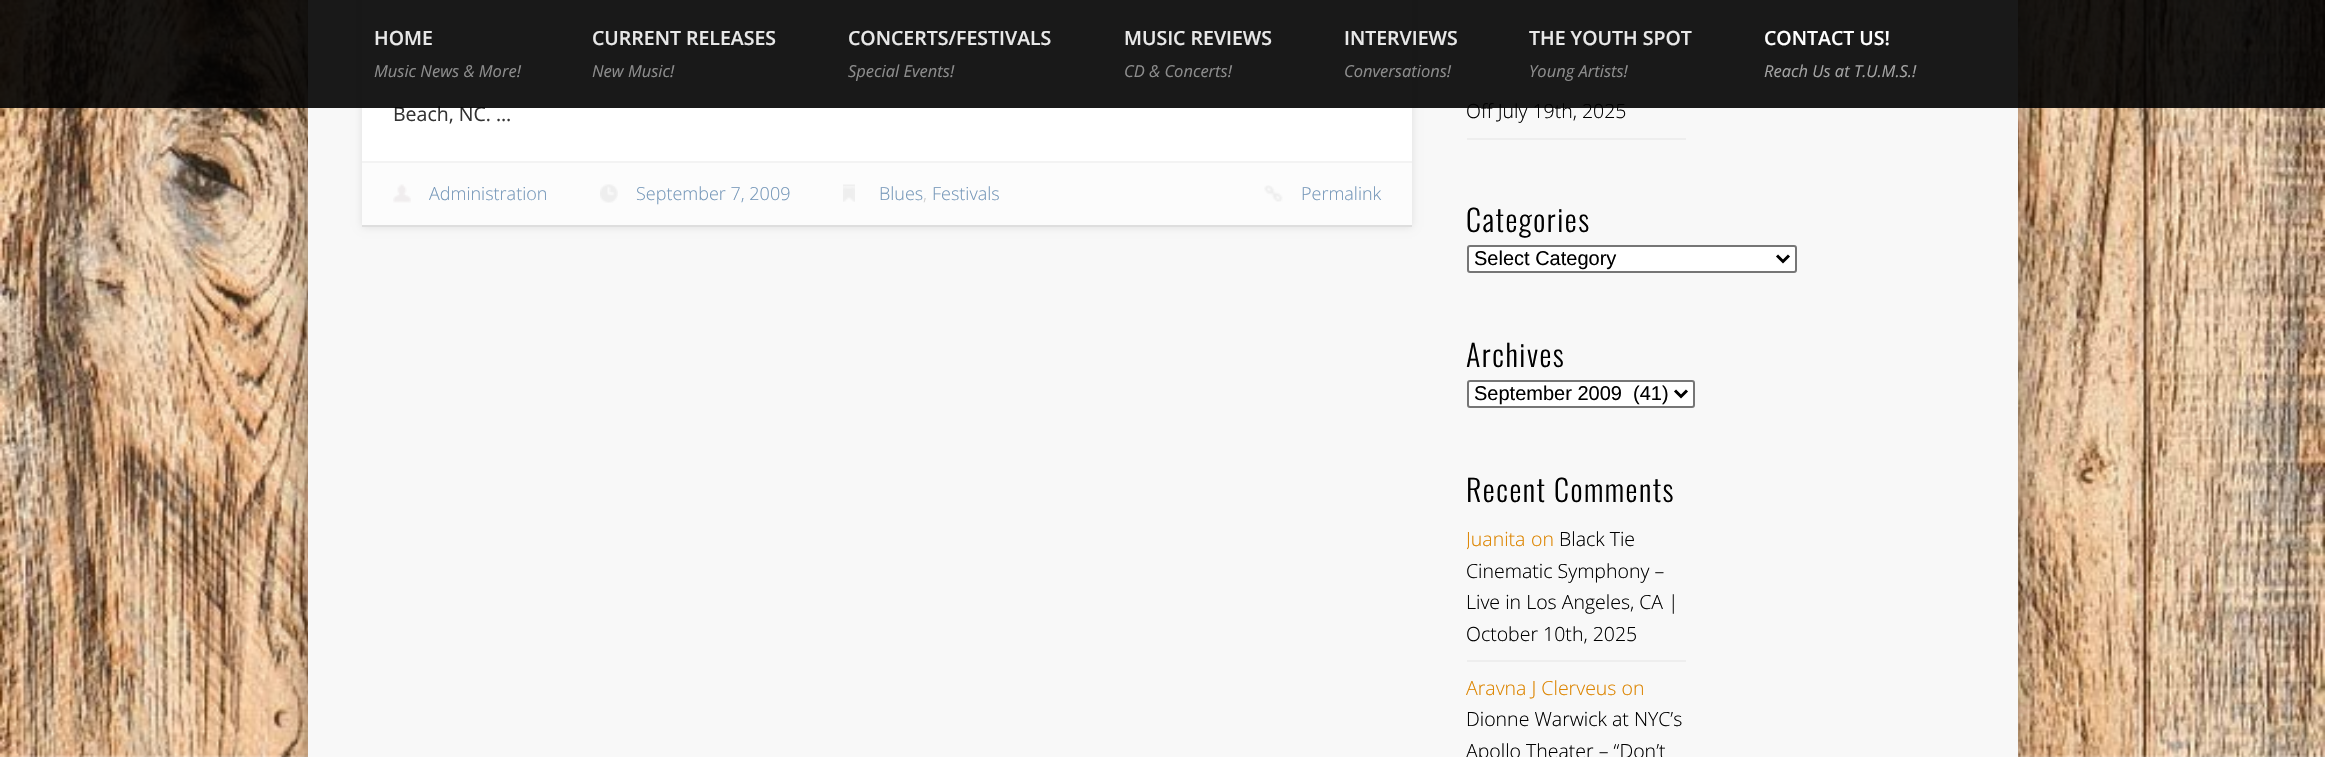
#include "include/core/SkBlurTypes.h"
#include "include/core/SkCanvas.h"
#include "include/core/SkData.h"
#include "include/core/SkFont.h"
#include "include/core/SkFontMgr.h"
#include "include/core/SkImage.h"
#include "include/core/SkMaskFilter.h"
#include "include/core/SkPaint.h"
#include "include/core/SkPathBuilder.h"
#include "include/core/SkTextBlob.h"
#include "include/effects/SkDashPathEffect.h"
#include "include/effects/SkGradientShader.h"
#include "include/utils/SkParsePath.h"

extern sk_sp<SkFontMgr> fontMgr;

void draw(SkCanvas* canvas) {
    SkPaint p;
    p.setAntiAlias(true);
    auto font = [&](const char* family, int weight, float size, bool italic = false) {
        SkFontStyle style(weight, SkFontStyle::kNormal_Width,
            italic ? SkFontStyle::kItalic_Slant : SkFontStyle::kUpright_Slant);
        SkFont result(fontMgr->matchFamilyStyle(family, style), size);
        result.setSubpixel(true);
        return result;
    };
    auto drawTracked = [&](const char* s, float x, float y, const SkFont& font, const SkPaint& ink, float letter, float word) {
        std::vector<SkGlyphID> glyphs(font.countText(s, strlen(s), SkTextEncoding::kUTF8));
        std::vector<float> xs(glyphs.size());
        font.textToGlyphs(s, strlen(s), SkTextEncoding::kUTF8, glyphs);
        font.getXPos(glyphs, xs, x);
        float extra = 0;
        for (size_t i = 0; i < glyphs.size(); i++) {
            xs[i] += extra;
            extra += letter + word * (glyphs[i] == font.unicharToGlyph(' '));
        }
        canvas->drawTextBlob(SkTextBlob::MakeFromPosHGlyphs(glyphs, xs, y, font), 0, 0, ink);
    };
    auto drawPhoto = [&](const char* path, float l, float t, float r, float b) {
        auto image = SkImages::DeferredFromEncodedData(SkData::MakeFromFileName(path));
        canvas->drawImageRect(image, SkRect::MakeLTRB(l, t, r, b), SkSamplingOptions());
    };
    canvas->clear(0xFFFFFFFF);
    drawPhoto("media/1.png", 0, 0, 2325, 757);
    p.setColor(0x66000000);
    p.setMaskFilter(SkMaskFilter::MakeBlur(kNormal_SkBlurStyle, 13.5f));
    canvas->drawRect(SkRect::MakeLTRB(308, -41, 2018, 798), p);
    p.setMaskFilter(nullptr);
    p.setColor(0xFFF8F8F8);
    canvas->drawRect(SkRect::MakeLTRB(308, 0, 2018, 757), p);
    p.setColor(0x1A000000);
    p.setMaskFilter(SkMaskFilter::MakeBlur(kNormal_SkBlurStyle, 4));
    canvas->drawRect(SkRect::MakeLTRB(362, -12, 1412, 227), p);
    p.setMaskFilter(nullptr);
    p.setColor(0xFFFFFFFF);
    canvas->drawRect(SkRect::MakeLTRB(362, 0, 1412, 161), p);
    auto font1 = font("Open Sans", 400, 19.5f);
    p.setColor(0xFF333333);
    canvas->drawString("Beach, NC. …", 393, 121, font1, p);
    auto font2 = font("Open Sans", 300, 19.5f);
    p.setColor(0xFF000000);
    canvas->drawString("Off July 19th, 2025", 1466, 118, font2, p);
    p.setColor(0xE6000000);
    canvas->drawRect(SkRect::MakeLTRB(0, 0, 2325, 108), p);
    auto font3 = font("Open Sans", 600, 19.5f);
    p.setColor(0xFFE8E8E8);
    canvas->drawString("HOME", 374, 45, font3, p);
    auto font4 = font("Open Sans", 400, 16.5f, true);
    p.setColor(0xFF8C8C8C);
    canvas->drawString("Music News & More!", 374, 77, font4, p);
    p.setColor(0xFFE8E8E8);
    canvas->drawString("CURRENT RELEASES", 592, 45, font3, p);
    p.setColor(0xFF8C8C8C);
    canvas->drawString("New Music!", 592, 77, font4, p);
    p.setColor(0xFFE8E8E8);
    canvas->drawString("CONCERTS/FESTIVALS", 848, 45, font3, p);
    p.setColor(0xFF8C8C8C);
    canvas->drawString("Special Events!", 848, 77, font4, p);
    p.setColor(0xFFE8E8E8);
    canvas->drawString("MUSIC REVIEWS", 1124, 45, font3, p);
    p.setColor(0xFF8C8C8C);
    canvas->drawString("CD & Concerts!", 1124, 77, font4, p);
    p.setColor(0xFFE8E8E8);
    canvas->drawString("INTERVIEWS", 1344, 45, font3, p);
    p.setColor(0xFF8C8C8C);
    canvas->drawString("Conversations!", 1344, 77, font4, p);
    p.setColor(0xFFE8E8E8);
    canvas->drawString("THE YOUTH SPOT", 1529, 45, font3, p);
    p.setColor(0xFF8C8C8C);
    canvas->drawString("Young Artists!", 1529, 77, font4, p);
    p.setColor(0xFFFEFEFE);
    canvas->drawString("CONTACT US!", 1764, 45, font3, p);
    p.setColor(0xFFA3A3A3);
    canvas->drawString("Reach Us at T.U.M.S.!", 1764, 77, font4, p);
    {
        const struct { float l, t, r, b; SkColor color; } items[] = {
            {362, 225, 1412, 227, 0xFFDEDEDE},
            {362, 163, 1412, 225, 0xFFFCFCFC},
            {362, 161, 1412, 163, 0xFFF3F3F3},
        };
        for (auto [l, t, r, b, color] : items) {
            p.setColor(color);
            canvas->drawRect(SkRect::MakeLTRB(l, t, r, b), p);
        }
    }
    drawPhoto("media/2.png", 393, 184, 411, 203);
    auto font5 = font("Open Sans", 300, 18);
    p.setColor(0xFF7597B9);
    canvas->drawString("Administration", 429, 200, font5, p);
    drawPhoto("media/3.png", 600, 184, 618, 203);
    canvas->drawString("September 7, 2009", 636, 200, font5, p);
    drawPhoto("media/4.png", 843, 184, 855, 202);
    canvas->drawString("Blues", 879, 200, font5, p);
    p.setColor(0xFFCCCCCC);
    canvas->drawString(",", 923, 200, font5, p);
    p.setColor(0xFF7597B9);
    canvas->drawString("Festivals", 932, 200, font5, p);
    drawPhoto("media/5.png", 1264, 185, 1283, 202);
    canvas->drawString("Permalink", 1301, 200, font5, p);
    p.setColor(0xFFEEEEEE);
    canvas->drawRect(SkRect::MakeLTRB(1467, 138, 1686, 140), p);
    auto font6 = font("Oswald", 300, 30);
    p.setColor(0xFF000000);
    drawTracked("Categories", 1466, 232, font6, p, 1.5f, 0);
    p.setColor(0xFFFFFFFF);
    canvas->drawRoundRect(SkRect::MakeLTRB(1468, 246, 1796, 272), 2, 2, p);
    p.setStyle(SkPaint::kStroke_Style);
    p.setStrokeWidth(2);
    p.setColor(0xFF767676);
    canvas->drawRoundRect(SkRect::MakeLTRB(1468, 246, 1796, 272), 2, 2, p);
    p.setStrokeWidth(3);
    p.setColor(0xFF000000);
    canvas->drawPath(SkPathBuilder().moveTo(1777, 255.5f).lineTo(1783, 261.5f).lineTo(1789, 255.5f).detach(), p);
    auto font7 = font("Liberation Sans", 400, 20);
    p.setStyle(SkPaint::kFill_Style);
    canvas->drawString("Select Category", 1474, 265, font7, p);
    drawTracked("Archives", 1466, 367, font6, p, 1.5f, 0);
    p.setColor(0xFFFFFFFF);
    canvas->drawRoundRect(SkRect::MakeLTRB(1468, 381, 1694, 407), 2, 2, p);
    p.setStyle(SkPaint::kStroke_Style);
    p.setStrokeWidth(2);
    p.setColor(0xFF767676);
    canvas->drawRoundRect(SkRect::MakeLTRB(1468, 381, 1694, 407), 2, 2, p);
    p.setStrokeWidth(3);
    p.setColor(0xFF000000);
    canvas->drawPath(SkPathBuilder().moveTo(1675, 390.5f).lineTo(1681, 396.5f).lineTo(1687, 390.5f).detach(), p);
    p.setStyle(SkPaint::kFill_Style);
    canvas->drawString("September 2009  (41)", 1474, 400, font7, p);
    drawTracked("Recent Comments", 1466, 502, font6, p, 1.5f, 0);
    p.setColor(0xFFEEEEEE);
    canvas->drawRect(SkRect::MakeLTRB(1467, 660, 1686, 662), p);
    canvas->save();
    canvas->clipRect(SkRect::MakeLTRB(1467, 513, 1686, 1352));
    p.setColor(0xFFDD8500);
    canvas->drawString("Juanita", 1466, 546, font2, p);
    canvas->restore();
    canvas->drawString("on", 1531, 546, font2, p);
    p.setColor(0xFF000000);
    {
        const struct { const char* s; float x, y; } items[] = {
            {"Black Tie", 1559, 546},
            {"Cinematic Symphony –", 1466, 578},
            {"Live in Los Angeles, CA |", 1466, 609},
            {"October 10th, 2025", 1466, 641},
        };
        for (auto [s, x, y] : items) {
            canvas->drawString(s, x, y, font2, p);
        }
    }
    p.setColor(0xFFDD8500);
    canvas->drawString("Aravna J Clerveus on", 1466, 695, font2, p);
    p.setColor(0xFF000000);
    canvas->drawString("Dionne Warwick at NYC’s", 1466, 726, font2, p);
    canvas->drawString("Apollo Theater – “Don’t", 1466, 758, font2, p);
}
